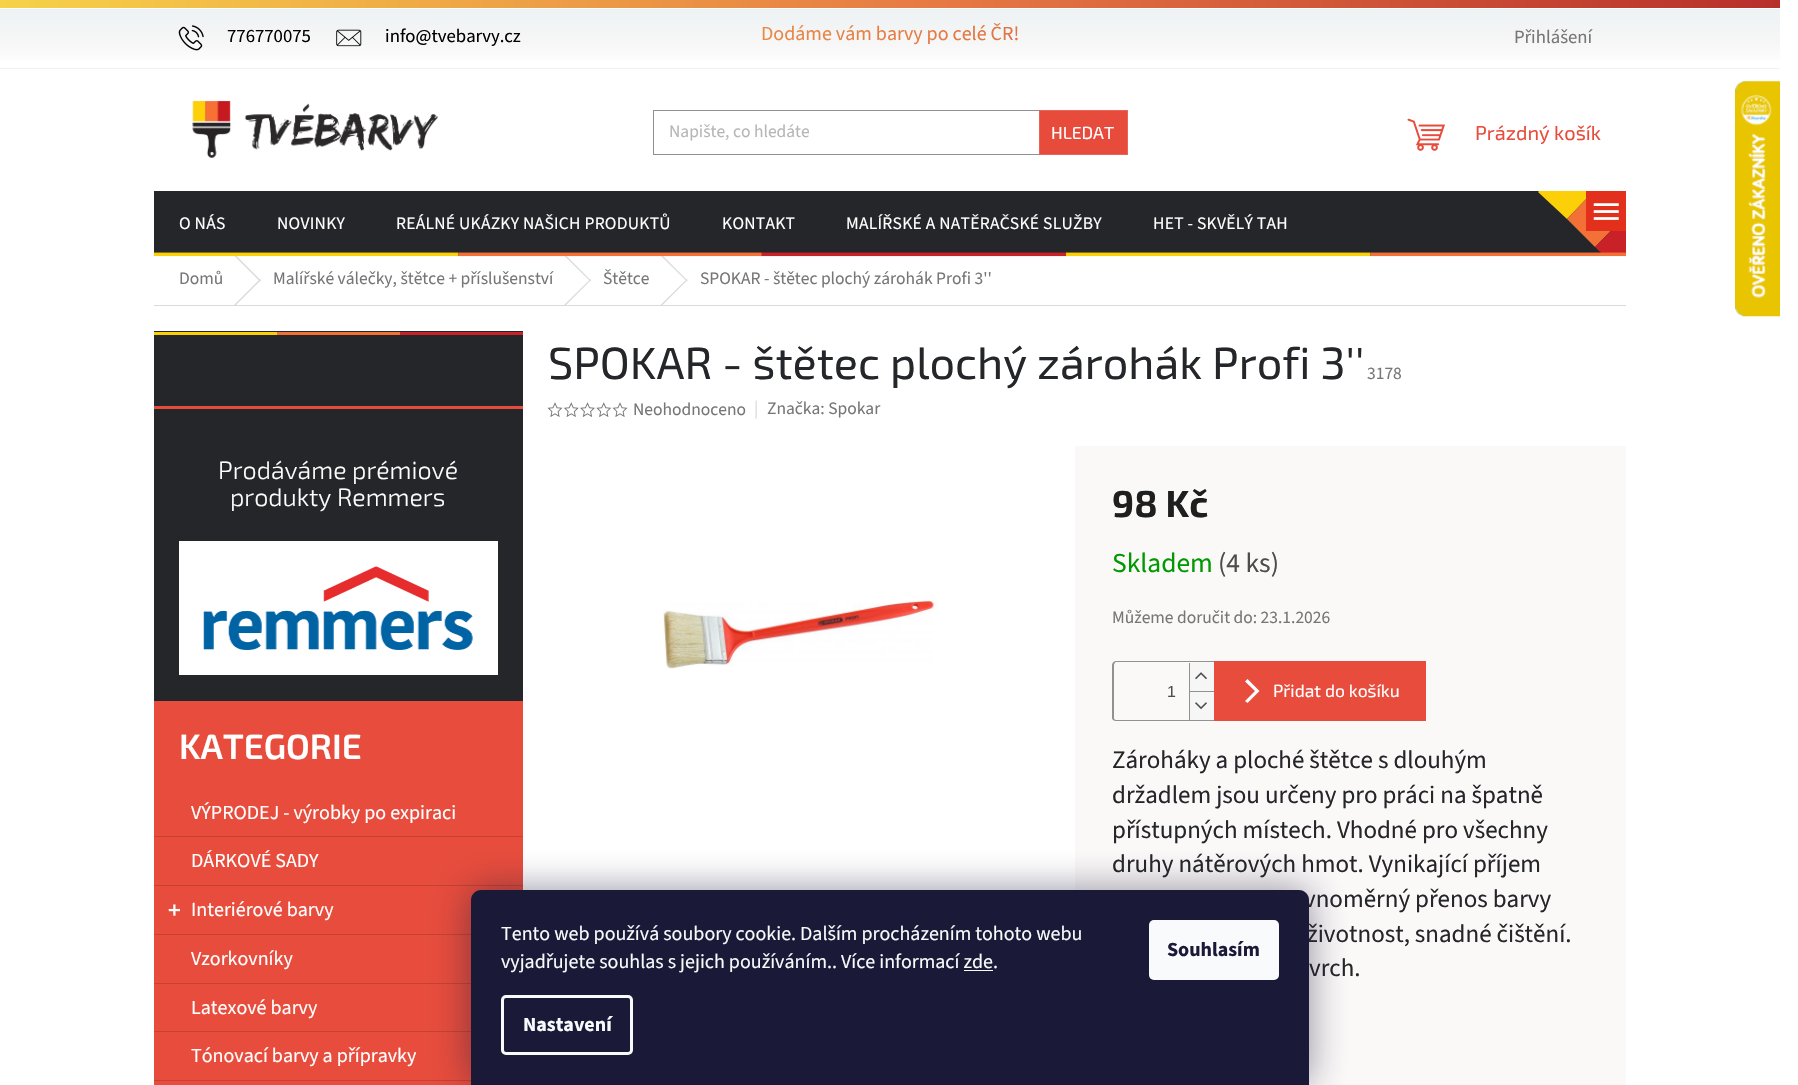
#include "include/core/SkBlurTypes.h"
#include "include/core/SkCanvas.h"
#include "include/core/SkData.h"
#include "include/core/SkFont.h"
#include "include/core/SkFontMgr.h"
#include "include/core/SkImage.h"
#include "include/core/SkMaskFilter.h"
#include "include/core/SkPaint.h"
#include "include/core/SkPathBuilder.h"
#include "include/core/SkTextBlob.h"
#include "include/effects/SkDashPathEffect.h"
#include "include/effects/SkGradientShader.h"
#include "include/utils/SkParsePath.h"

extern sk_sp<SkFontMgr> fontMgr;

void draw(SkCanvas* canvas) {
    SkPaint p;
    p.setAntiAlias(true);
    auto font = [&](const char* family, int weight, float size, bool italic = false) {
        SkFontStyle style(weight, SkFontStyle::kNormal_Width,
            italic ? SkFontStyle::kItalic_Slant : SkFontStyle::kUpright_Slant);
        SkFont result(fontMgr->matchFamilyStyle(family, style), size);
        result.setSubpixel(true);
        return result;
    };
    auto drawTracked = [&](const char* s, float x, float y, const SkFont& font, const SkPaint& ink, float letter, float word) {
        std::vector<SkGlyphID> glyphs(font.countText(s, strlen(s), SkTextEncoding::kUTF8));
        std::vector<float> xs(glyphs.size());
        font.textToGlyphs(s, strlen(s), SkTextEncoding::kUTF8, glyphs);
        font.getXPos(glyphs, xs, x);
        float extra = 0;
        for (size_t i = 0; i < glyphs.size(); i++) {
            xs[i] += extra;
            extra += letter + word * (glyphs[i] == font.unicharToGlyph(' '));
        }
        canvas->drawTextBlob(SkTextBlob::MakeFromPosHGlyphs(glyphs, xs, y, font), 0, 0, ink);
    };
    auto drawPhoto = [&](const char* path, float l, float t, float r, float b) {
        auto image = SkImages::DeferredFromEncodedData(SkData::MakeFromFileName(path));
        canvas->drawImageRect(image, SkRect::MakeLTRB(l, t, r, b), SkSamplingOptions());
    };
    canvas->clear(0xFFFFFFFF);
    {
        const SkColor colors[] = {0xFFF6D248, 0xFFE67944, 0xFFB72F2B};
        const float stops[] = {0, 0.53f, 1};
        const SkPoint ends[] = {{0, 3.8f}, {1780, 3.7f}};
        p.setShader(SkGradientShader::MakeLinear(ends, colors, stops, 3, SkTileMode::kClamp));
        p.setAlpha(255);
    }
    canvas->drawRect(SkRect::MakeLTRB(0, 0, 1780, 8), p);
    {
        const SkColor colors[] = {0xFFEDF2F4, 0xFFF6F6F6, 0xFFFFFFFF};
        const float stops[] = {0, 0.53f, 1};
        const SkPoint ends[] = {{890, 9}, {890, 68}};
        p.setShader(SkGradientShader::MakeLinear(ends, colors, stops, 3, SkTileMode::kClamp));
        p.setAlpha(255);
    }
    canvas->drawRect(SkRect::MakeLTRB(0, 9, 1780, 60), p);
    {
        const SkColor colors[] = {0xFFEDF2F4, 0xFFF6F6F6, 0xFFFFFFFF};
        const float stops[] = {0, 0.53f, 1};
        const SkPoint ends[] = {{890, 67}, {890, 126}};
        p.setShader(SkGradientShader::MakeLinear(ends, colors, stops, 3, SkTileMode::kClamp));
        p.setAlpha(255);
    }
    canvas->drawRect(SkRect::MakeLTRB(0, 68, 1780, 69), p);
    auto font1 = font("Source Sans 3", 400, 20);
    {
        const SkColor colors[] = {0xFFF6D248, 0xFFE67944, 0xFFB72F2B};
        const float stops[] = {0, 0.53f, 1};
        const SkPoint ends[] = {{0, 34}, {1780, 34}};
        p.setShader(SkGradientShader::MakeLinear(ends, colors, stops, 3, SkTileMode::kClamp));
        p.setAlpha(255);
    }
    canvas->drawString("Dodáme vám barvy po celé ČR!", 761, 40, font1, p);
    drawPhoto("media/1.png", 178, 25, 204, 51);
    auto font2 = font("Source Sans 3", 400, 18.75f);
    p.setShader(nullptr);
    p.setColor(0xFF000000);
    canvas->drawString("776770075", 227, 42, font2, p);
    drawPhoto("media/2.png", 336, 29, 362, 47);
    canvas->drawString("info@tvebarvy.cz", 385, 42, font2, p);
    p.setColor(0xFF767676);
    canvas->drawString("Přihlášení", 1514, 43, font2, p);
    drawPhoto("media/3.png", 192, 100, 438, 158);
    p.setStyle(SkPaint::kStroke_Style);
    p.setStrokeWidth(1);
    p.setColor(0xFF919191);
    canvas->drawRect(SkRect::MakeLTRB(653.5f, 110.5f, 1127.5f, 154.5f), p);
    auto font3 = font("Source Sans 3", 400, 17.5f);
    p.setStyle(SkPaint::kFill_Style);
    p.setColor(0xFFB6B6B6);
    canvas->drawString("Napište, co hledáte", 669, 137, font3, p);
    p.setColor(0xFFE74B3C);
    canvas->drawRect(SkRect::MakeLTRB(1039.5f, 110.5f, 1127.5f, 154.5f), p);
    p.setStyle(SkPaint::kStroke_Style);
    p.setColor(0xFFE86456);
    canvas->drawRect(SkRect::MakeLTRB(1039.5f, 110.5f, 1127.5f, 154.5f), p);
    auto font4 = font("Exo 2", 400, 17.5f);
    p.setStyle(SkPaint::kFill_Style);
    p.setColor(0xFFFFFFFF);
    canvas->drawString("HLEDAT", 1051, 139, font4, p);
    drawPhoto("media/4.png", 1407, 118, 1445, 151);
    auto font5 = font("Exo 2", 400, 20);
    p.setColor(0xFFE74C3C);
    canvas->drawString("Prázdný košík", 1475, 140, font5, p);
    p.setColor(0xFF25262A);
    canvas->drawRect(SkRect::MakeLTRB(154, 191, 1611, 256), p);
    p.setColor(0xFFFFFFFF);
    {
        const struct { const char* s; float x, y; } items[] = {
            {"O NÁS", 179, 229},
            {"NOVINKY", 277, 229},
            {"REÁLNÉ UKÁZKY NAŠICH PRODUKTŮ", 396, 229},
            {"KONTAKT", 722, 229},
            {"MALÍŘSKÉ A NATĚRAČSKÉ SLUŽBY", 846, 229},
            {"HET - SKVĚLÝ TAH", 1153, 229},
        };
        for (auto [s, x, y] : items) {
            drawTracked(s, x, y, font3, p, 0.25f, 0);
        }
    }
    canvas->save();
    canvas->clipRect(SkRect::MakeLTRB(154, 191, 1626, 256));
    p.setColor(0xFFFCD008);
    canvas->drawPath(SkPathBuilder().moveTo(1584, 144).lineTo(1612, 172).lineTo(1567, 219).lineTo(1538, 192).close().detach(), p);
    p.setColor(0xFFF37136);
    canvas->drawPath(SkPathBuilder().moveTo(1612, 172).lineTo(1641, 200).lineTo(1595, 247).lineTo(1567, 219).close().detach(), p);
    p.setColor(0xFFC82127);
    canvas->drawPath(SkPathBuilder().moveTo(1641, 200).lineTo(1670, 228).lineTo(1634, 265).lineTo(1624, 275).lineTo(1595, 247).close().detach(), p);
    canvas->restore();
    p.setColor(0xFFDADADA);
    canvas->drawPath(SkPathBuilder().moveTo(234, 255.5f).lineTo(235, 254.5f).lineTo(261, 280.5f).lineTo(260, 281.5f).close().detach(), p);
    canvas->drawPath(SkPathBuilder().moveTo(564, 255.5f).lineTo(565, 254.5f).lineTo(591, 280.5f).lineTo(590.5f, 281.5f).close().detach(), p);
    canvas->drawPath(SkPathBuilder().moveTo(660.5f, 255.5f).lineTo(661.5f, 254.5f).lineTo(687.5f, 280.5f).lineTo(687, 281.5f).close().detach(), p);
    drawPhoto("media/5.png", 153, 252, 1627, 257);
    p.setColor(0xFFE3301C);
    canvas->drawRect(SkRect::MakeLTRB(1586, 191, 1626, 231), p);
    drawPhoto("media/6.png", 1593, 203, 1619, 220);
    p.setColor(0xFFDADADA);
    canvas->drawRect(SkRect::MakeLTRB(154, 305, 1626, 306), p);
    p.setColor(0xFF767676);
    canvas->drawString("Domů", 179, 284, font3, p);
    p.setColor(0xFFDADADA);
    canvas->drawPath(SkPathBuilder().moveTo(260, 279).lineTo(261, 280).lineTo(235, 306).lineTo(234, 305).close().detach(), p);
    p.setColor(0xFF767676);
    canvas->drawString("Malířské válečky, štětce + příslušenství", 273, 284, font3, p);
    p.setColor(0xFFDADADA);
    canvas->drawPath(SkPathBuilder().moveTo(590.5f, 279).lineTo(591, 280).lineTo(565, 306).lineTo(564, 305).close().detach(), p);
    p.setColor(0xFF767676);
    canvas->drawString("Štětce", 603, 284, font3, p);
    p.setColor(0xFFDADADA);
    canvas->drawPath(SkPathBuilder().moveTo(687, 279).lineTo(687.5f, 280).lineTo(661.5f, 306).lineTo(660.5f, 305).close().detach(), p);
    p.setColor(0xFF767676);
    canvas->drawString("SPOKAR - štětec plochý zárohák Profi 3''", 700, 284, font3, p);
    {
        const struct { float l, t, r, b; SkColor color; } items[] = {
            {154, 701, 523, 1085, 0xFFE74C3C},
            {154, 331, 523, 406, 0xFF25262A},
            {154, 332, 277, 335, 0xFFFCD008},
            {277, 332, 400, 335, 0xFFF37136},
            {400, 332, 523, 335, 0xFFC82127},
            {154, 409, 523, 701, 0xFF25262A},
            {154, 406, 523, 409, 0xFFE74B3C},
        };
        for (auto [l, t, r, b, color] : items) {
            p.setColor(color);
            canvas->drawRect(SkRect::MakeLTRB(l, t, r, b), p);
        }
    }
    auto font6 = font("Exo 2", 300, 25);
    p.setColor(0xFFFFFFFF);
    canvas->drawString("Prodáváme prémiové", 218, 479, font6, p);
    canvas->drawString("produkty Remmers", 230, 506, font6, p);
    canvas->drawRect(SkRect::MakeLTRB(179, 541, 498, 675), p);
    drawPhoto("media/7.png", 203, 566, 473, 650);
    auto font7 = font("Exo 2", 600, 35);
    canvas->drawString("KATEGORIE", 179, 759, font7, p);
    p.setColor(0xFFC44133);
    canvas->drawRect(SkRect::MakeLTRB(154, 836, 523, 837), p);
    p.setColor(0xFFFFFFFF);
    canvas->drawString("VÝPRODEJ - výrobky po expiraci", 191, 819, font1, p);
    p.setColor(0xFFC44133);
    canvas->drawRect(SkRect::MakeLTRB(154, 885, 523, 886), p);
    p.setColor(0xFFFFFFFF);
    canvas->drawString("DÁRKOVÉ SADY", 191, 867, font1, p);
    p.setColor(0xFFC44133);
    canvas->drawRect(SkRect::MakeLTRB(154, 934, 471, 935), p);
    drawPhoto("media/8.png", 168, 904, 180, 916);
    p.setColor(0xFFFFFFFF);
    canvas->drawString("Interiérové barvy", 191, 916, font1, p);
    p.setColor(0xFFC44133);
    canvas->drawRect(SkRect::MakeLTRB(154, 983, 471, 984), p);
    p.setColor(0xFFFFFFFF);
    canvas->drawString("Vzorkovníky", 191, 965, font1, p);
    p.setColor(0xFFC44133);
    canvas->drawRect(SkRect::MakeLTRB(154, 1031, 471, 1032), p);
    p.setColor(0xFFFFFFFF);
    canvas->drawString("Latexové barvy", 191, 1014, font1, p);
    p.setColor(0xFFC44133);
    canvas->drawRect(SkRect::MakeLTRB(154, 1080, 471, 1081), p);
    p.setColor(0xFFFFFFFF);
    canvas->drawString("Tónovací barvy a přípravky", 191, 1062, font1, p);
    auto font8 = font("Exo 2", 400, 45);
    p.setColor(0xFF25262A);
    canvas->drawString("SPOKAR - štětec plochý zárohák Profi 3''", 548, 379, font8, p);
    p.setColor(0xFF767676);
    canvas->drawString("3178", 1367, 379, font3, p);
    drawPhoto("media/9.png", 547, 402, 563, 417);
    drawPhoto("media/10.png", 563, 402, 579, 417);
    drawPhoto("media/11.png", 580, 402, 595, 417);
    drawPhoto("media/12.png", 596, 402, 612, 417);
    drawPhoto("media/9.png", 612, 402, 628, 417);
    canvas->drawString("Neohodnoceno", 633, 415, font3, p);
    p.setColor(0xFFDADADA);
    canvas->drawString("|", 754, 414, font3, p);
    p.setColor(0xFF767676);
    canvas->drawString("Značka: Spokar", 767, 414, font3, p);
    drawPhoto("media/13.png", 663, 596, 939, 669);
    p.setColor(0xFFFBF8F8);
    canvas->drawRect(SkRect::MakeLTRB(1075, 446, 1626, 1085), p);
    auto font9 = font("Exo 2", 700, 37.5f);
    p.setColor(0xFF1F1F1F);
    canvas->drawString("98 Kč", 1112, 517, font9, p);
    auto font10 = font("Source Sans 3", 400, 27.5f);
    p.setColor(0xFF009901);
    canvas->drawString("Skladem", 1112, 572, font10, p);
    p.setColor(0xFF4D4D4D);
    canvas->drawString("(4 ks)", 1218, 572, font10, p);
    p.setColor(0xFF767676);
    canvas->drawString("Můžeme doručit do: 23.1.2026", 1112, 623, font3, p);
    p.setColor(0xFF919191);
    canvas->drawPath(SkPathBuilder(SkPathFillType::kEvenOdd).moveTo(1116, 661).lineTo(1214, 661).lineTo(1214, 721).lineTo(1116, 721).cubicTo(1114, 721, 1112, 720, 1112, 718).lineTo(1112, 665).cubicTo(1112, 663, 1114, 661, 1116, 661).close().moveTo(1116, 662).lineTo(1214, 662).lineTo(1214, 720).lineTo(1116, 720).cubicTo(1115, 720, 1114, 719, 1114, 718).lineTo(1114, 665).cubicTo(1114, 664, 1115, 662, 1116, 662).close().detach(), p);
    auto font11 = font("Liberation Sans", 400, 16);
    p.setColor(0xFF4D4D4D);
    canvas->drawString("1", 1167, 697, font11, p);
    p.setColor(0xFFF6F6F6);
    canvas->drawRect(SkRect::MakeLTRB(1190, 663, 1214, 691), p);
    p.setColor(0xFF919191);
    canvas->drawRect(SkRect::MakeLTRB(1189, 663, 1190, 691), p);
    drawPhoto("media/14.png", 1195, 672, 1207, 680);
    {
        const struct { float l, t, r, b; SkColor color; } items[] = {
            {1190, 692, 1214, 720, 0xFFF6F6F6},
            {1189, 691, 1214, 692, 0xFF919191},
            {1189, 691, 1190, 720, 0xFF919191},
        };
        for (auto [l, t, r, b, color] : items) {
            p.setColor(color);
            canvas->drawRect(SkRect::MakeLTRB(l, t, r, b), p);
        }
    }
    drawPhoto("media/15.png", 1195, 702, 1207, 710);
    p.setColor(0xFFE74C3C);
    canvas->drawRect(SkRect::MakeLTRB(1214, 661, 1426, 721), p);
    p.setColor(0xFFFFFFFF);
    canvas->drawPath(SkPathBuilder().moveTo(1247.5f, 703).lineTo(1245, 701).lineTo(1255, 691).lineTo(1245, 681.5f).lineTo(1247.5f, 679).lineTo(1259.5f, 691).close().detach(), p);
    canvas->drawString("Přidat do košíku", 1273, 697, font4, p);
    auto font12 = font("Source Sans 3", 400, 25);
    p.setColor(0xFF25262A);
    {
        const struct { const char* s; float x, y; } items[] = {
            {"Zároháky a ploché štětce s dlouhým", 1112, 768},
            {"držadlem jsou určeny pro práci na špatně", 1112, 803},
            {"přístupných místech. Vhodné pro všechny", 1112, 838},
            {"druhy nátěrových hmot. Vynikající příjem", 1112, 872},
            {"vnoměrný přenos barvy", 1304, 907},
            {"životnost, snadné čištění.", 1307, 942},
            {"vrch.", 1309, 976},
        };
        for (auto [s, x, y] : items) {
            canvas->drawString(s, x, y, font12, p);
        }
    }
    drawPhoto("media/16.png", 1735, 81, 1780, 317);
    p.setColor(0x801B1939);
    p.setMaskFilter(SkMaskFilter::MakeBlur(kNormal_SkBlurStyle, 19));
    canvas->drawRoundRect(SkRect::MakeLTRB(471, 890, 1309, 1085), 10, 10, p);
    p.setMaskFilter(nullptr);
    p.setColor(0xFF1A1937);
    canvas->drawPath(SkPathBuilder().moveTo(481, 890).lineTo(1299, 890).cubicTo(1304.5f, 890, 1309, 894.5f, 1309, 900).lineTo(1309, 1085).lineTo(471, 1085).lineTo(471, 900).cubicTo(471, 894.5f, 475.5f, 890, 481, 890).close().detach(), p);
    p.setColor(0xFFF8FAFB);
    canvas->drawString("Tento web používá soubory cookie. Dalším procházením tohoto webu", 501, 940, font1, p);
    canvas->drawString("vyjadřujete souhlas s jejich používáním.. Více informací zde.", 501, 968, font1, p);
    canvas->drawRect(SkRect::MakeLTRB(964, 970, 993, 971), p);
    p.setStyle(SkPaint::kStroke_Style);
    p.setStrokeWidth(3);
    canvas->drawRoundRect(SkRect::MakeLTRB(502.5f, 996.5f, 631.5f, 1053.5f), 3.5f, 3.5f, p);
    auto font13 = font("Source Sans 3", 700, 20);
    p.setStyle(SkPaint::kFill_Style);
    canvas->drawString("Nastavení", 523, 1031, font13, p);
    canvas->drawRoundRect(SkRect::MakeLTRB(1149, 920, 1279, 980), 5, 5, p);
    p.setColor(0xFF1A1937);
    canvas->drawString("Souhlasím", 1167, 956, font13, p);
}
